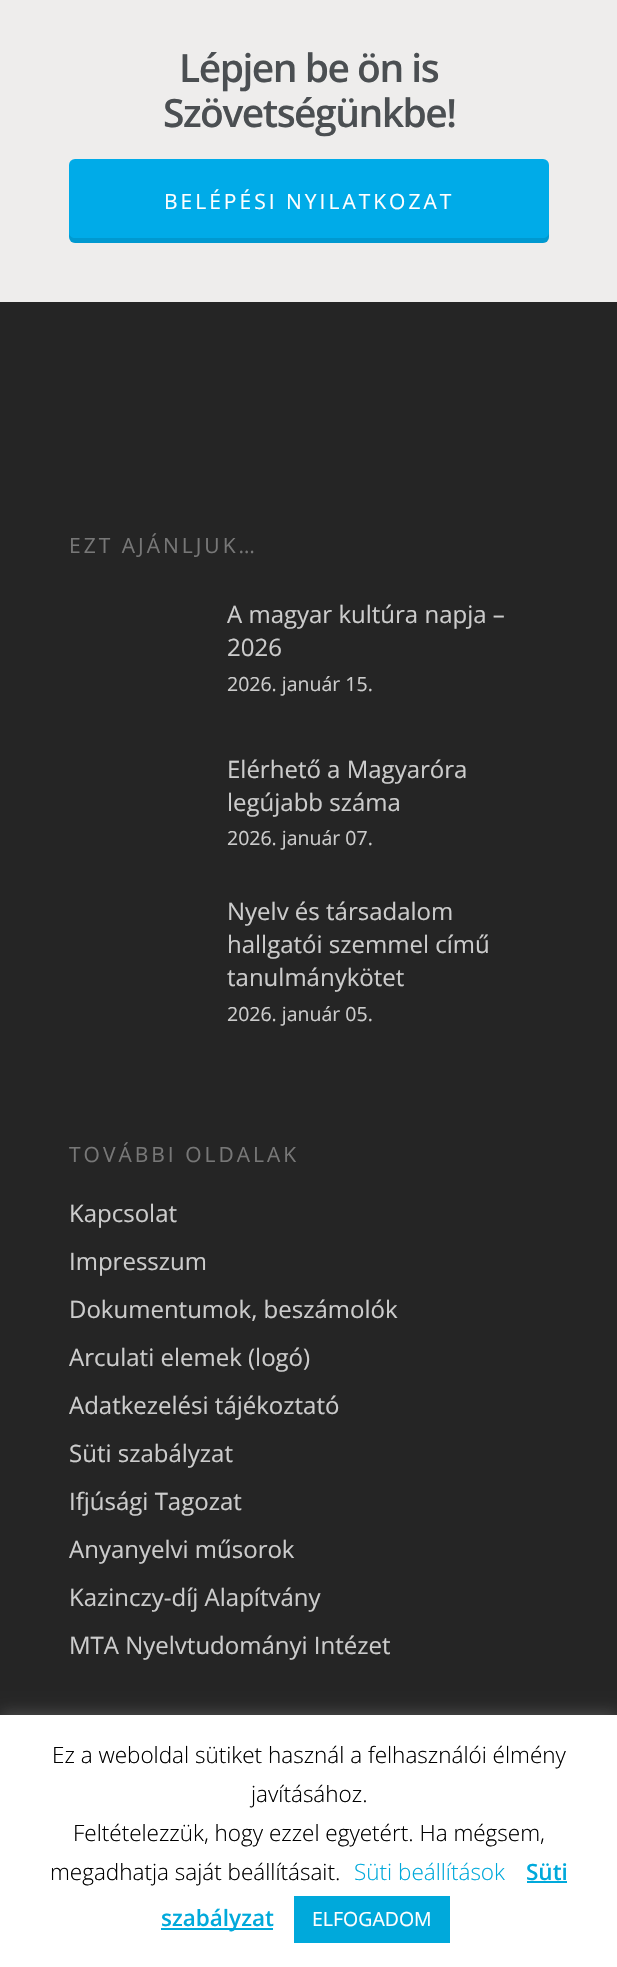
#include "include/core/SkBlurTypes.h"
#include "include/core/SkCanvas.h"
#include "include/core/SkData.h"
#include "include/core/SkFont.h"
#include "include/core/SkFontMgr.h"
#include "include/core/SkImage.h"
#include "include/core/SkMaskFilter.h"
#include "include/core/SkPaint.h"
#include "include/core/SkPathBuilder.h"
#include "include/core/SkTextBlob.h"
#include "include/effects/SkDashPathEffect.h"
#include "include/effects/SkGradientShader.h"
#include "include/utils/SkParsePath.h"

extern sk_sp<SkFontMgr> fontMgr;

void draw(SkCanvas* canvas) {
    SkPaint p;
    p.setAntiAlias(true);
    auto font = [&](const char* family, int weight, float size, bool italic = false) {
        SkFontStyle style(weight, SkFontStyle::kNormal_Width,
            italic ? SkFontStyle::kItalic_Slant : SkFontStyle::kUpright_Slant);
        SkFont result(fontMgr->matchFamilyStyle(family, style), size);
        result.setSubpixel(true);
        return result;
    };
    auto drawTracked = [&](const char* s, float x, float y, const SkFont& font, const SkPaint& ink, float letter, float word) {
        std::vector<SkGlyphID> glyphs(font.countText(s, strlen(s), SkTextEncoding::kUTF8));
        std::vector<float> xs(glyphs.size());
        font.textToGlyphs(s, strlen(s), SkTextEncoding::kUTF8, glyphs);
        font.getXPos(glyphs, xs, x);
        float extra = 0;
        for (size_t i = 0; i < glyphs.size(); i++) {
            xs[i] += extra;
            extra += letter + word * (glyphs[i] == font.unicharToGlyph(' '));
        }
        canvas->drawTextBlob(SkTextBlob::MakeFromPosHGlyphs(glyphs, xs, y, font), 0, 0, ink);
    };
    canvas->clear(0xFF252525);
    p.setColor(0xFFEEEDEC);
    canvas->drawRect(SkRect::MakeLTRB(0, 0, 617, 302), p);
    auto font1 = font("Open Sans", 600, 39);
    p.setColor(0xFF4B4F52);
    drawTracked("Lépjen be ön is", 179, 82, font1, p, -1.5f, 0);
    drawTracked("Szövetségünkbe!", 163, 127, font1, p, -1.5f, 0);
    p.setColor(0xFF00ABE8);
    canvas->drawRoundRect(SkRect::MakeLTRB(69, 159, 549, 243), 6, 6, p);
    p.setColor(0x1A000000);
    canvas->drawPath(SkPathBuilder().moveTo(69, 232).cubicTo(69, 236, 69, 243, 75, 243).lineTo(544, 243).cubicTo(550, 242, 549, 236, 549, 232).cubicTo(549, 236, 546, 238, 543, 238).lineTo(75, 238).cubicTo(72, 238, 69, 236, 69, 232).close().detach(), p);
    auto font2 = font("Open Sans", 400, 21);
    p.setColor(0xFFFFFFFF);
    drawTracked("BELÉPÉSI NYILATKOZAT", 164, 209, font2, p, 3, 0);
    p.setColor(0xFF777777);
    drawTracked("EZT AJÁNLJUK…", 69, 553, font2, p, 3, 0);
    auto font3 = font("Open Sans", 400, 24);
    p.setColor(0xFFCCCCCC);
    canvas->drawString("A magyar kultúra napja –", 227, 623, font3, p);
    canvas->drawString("2026", 227, 656, font3, p);
    auto font4 = font("Open Sans", 400, 19.5f);
    canvas->drawString("2026. január 15.", 227, 691, font4, p);
    canvas->drawString("Elérhető a Magyaróra", 227, 778, font3, p);
    canvas->drawString("legújabb száma", 227, 811, font3, p);
    canvas->drawString("2026. január 07.", 227, 845, font4, p);
    {
        const struct { const char* s; float x, y; } items[] = {
            {"Nyelv és társadalom", 227, 920},
            {"hallgatói szemmel című", 227, 953},
            {"tanulmánykötet", 227, 986},
        };
        for (auto [s, x, y] : items) {
            canvas->drawString(s, x, y, font3, p);
        }
    }
    canvas->drawString("2026. január 05.", 227, 1021, font4, p);
    p.setColor(0xFF777777);
    drawTracked("TOVÁBBI OLDALAK", 69, 1162, font2, p, 3, 0);
    p.setColor(0xFFCCCCCC);
    {
        const struct { const char* s; float x, y; } items[] = {
            {"Kapcsolat", 69, 1222},
            {"Impresszum", 69, 1270},
            {"Dokumentumok, beszámolók", 69, 1318},
            {"Arculati elemek (logó)", 69, 1366},
            {"Adatkezelési tájékoztató", 69, 1414},
            {"Süti szabályzat", 69, 1462},
            {"Ifjúsági Tagozat", 69, 1510},
            {"Anyanyelvi műsorok", 69, 1558},
            {"Kazinczy-díj Alapítvány", 69, 1606},
            {"MTA Nyelvtudományi Intézet", 69, 1654},
        };
        for (auto [s, x, y] : items) {
            canvas->drawString(s, x, y, font3, p);
        }
    }
    p.setColor(0x4DACABAB);
    p.setMaskFilter(SkMaskFilter::MakeBlur(kNormal_SkBlurStyle, 7.5f));
    canvas->drawRect(SkRect::MakeLTRB(0, 1713, 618, 1967), p);
    p.setMaskFilter(nullptr);
    p.setColor(0xFFFFFFFF);
    canvas->drawRect(SkRect::MakeLTRB(0, 1715, 617, 1967), p);
    auto font5 = font("Open Sans", 300, 22.5f);
    p.setColor(0xFF000000);
    {
        const struct { const char* s; float x, y; } items[] = {
            {"Ez a weboldal sütiket használ a felhasználói élmény", 52, 1763},
            {"javításához.", 251, 1802},
            {"Feltételezzük, hogy ezzel egyetért. Ha mégsem,", 73, 1841},
            {"megadhatja saját beállításait.", 50, 1880},
        };
        for (auto [s, x, y] : items) {
            canvas->drawString(s, x, y, font5, p);
        }
    }
    p.setColor(0xFF00A9DB);
    canvas->drawString("Süti beállítások", 354, 1880, font5, p);
    auto font6 = font("Open Sans", 600, 22.5f);
    canvas->drawString("Süti", 526, 1880, font6, p);
    canvas->drawRect(SkRect::MakeLTRB(527, 1881, 567, 1883), p);
    canvas->drawRect(SkRect::MakeLTRB(161, 1928, 273, 1930), p);
    canvas->drawString("szabályzat", 161, 1926, font6, p);
    canvas->drawRect(SkRect::MakeLTRB(294, 1896, 450, 1943), p);
    p.setColor(0xFFFFFFFF);
    canvas->drawString("ELFOGADOM", 312, 1926, font4, p);
}
